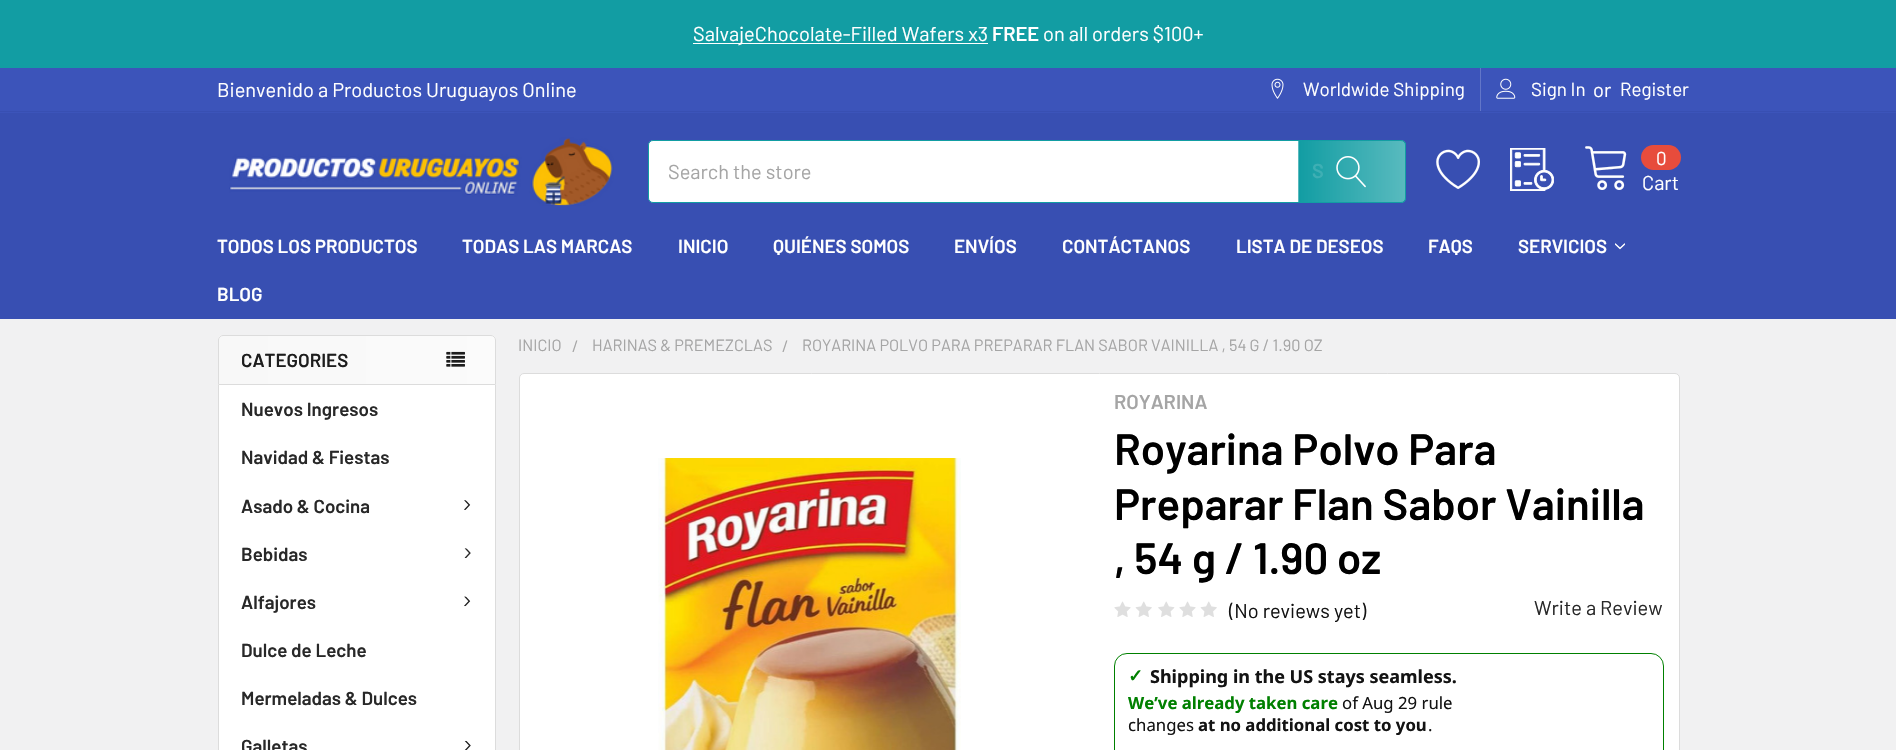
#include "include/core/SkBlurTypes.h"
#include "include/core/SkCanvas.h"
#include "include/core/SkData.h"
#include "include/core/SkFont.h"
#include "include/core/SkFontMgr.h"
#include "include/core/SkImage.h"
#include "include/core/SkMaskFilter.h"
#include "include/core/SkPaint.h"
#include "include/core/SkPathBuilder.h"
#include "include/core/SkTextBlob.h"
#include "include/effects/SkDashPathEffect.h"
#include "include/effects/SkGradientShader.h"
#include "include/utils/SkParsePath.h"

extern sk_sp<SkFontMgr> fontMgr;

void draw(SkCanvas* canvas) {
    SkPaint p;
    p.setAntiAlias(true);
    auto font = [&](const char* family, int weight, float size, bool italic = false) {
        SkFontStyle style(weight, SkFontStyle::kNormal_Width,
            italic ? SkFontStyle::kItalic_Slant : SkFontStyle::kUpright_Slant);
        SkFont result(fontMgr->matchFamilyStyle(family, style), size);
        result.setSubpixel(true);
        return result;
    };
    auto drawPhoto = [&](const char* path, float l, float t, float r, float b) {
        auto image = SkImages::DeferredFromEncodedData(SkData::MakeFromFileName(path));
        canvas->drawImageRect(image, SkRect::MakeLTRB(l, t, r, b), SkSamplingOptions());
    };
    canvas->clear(0xFFF1F1F2);
    p.setColor(0xFF129DA3);
    canvas->drawRect(SkRect::MakeLTRB(0, 0, 1896, 68), p);
    p.setColor(0xFFFFFFFF);
    canvas->drawRect(SkRect::MakeLTRB(693, 43, 988, 44), p);
    auto font1 = font("Barlow", 400, 20);
    canvas->drawString("SalvajeChocolate-Filled Wafers x3", 693, 41, font1, p);
    auto font2 = font("Barlow", 600, 20);
    canvas->drawString("FREE", 992, 41, font2, p);
    canvas->drawString("on all orders $100+", 1043, 41, font1, p);
    {
        const struct { float l, t, r, b; SkColor color; } items[] = {
            {0, 113, 1896, 319, 0xFF384FB2},
            {0, 68, 1896, 113, 0xFF3C54BA},
            {0, 111, 1896, 112, 0xFF384FB2},
        };
        for (auto [l, t, r, b, color] : items) {
            p.setColor(color);
            canvas->drawRect(SkRect::MakeLTRB(l, t, r, b), p);
        }
    }
    p.setColor(0xFFFFFFFF);
    canvas->drawString("Bienvenido a Productos Uruguayos Online", 217, 97, font1, p);
    drawPhoto("media/1.png", 1271, 78, 1284, 99);
    auto font3 = font("Barlow", 400, 18.75f);
    canvas->drawString("Worldwide Shipping", 1303, 96, font3, p);
    p.setColor(0xFF6376C8);
    canvas->drawRect(SkRect::MakeLTRB(1480, 68, 1481, 111), p);
    drawPhoto("media/2.png", 1496, 78, 1516, 99);
    p.setColor(0xFFFFFFFF);
    canvas->drawString("Sign In", 1531, 96, font3, p);
    canvas->drawString("or", 1593, 97, font1, p);
    canvas->drawString("Register", 1620, 96, font3, p);
    drawPhoto("media/3.png", 229, 137, 614, 206);
    canvas->drawRoundRect(SkRect::MakeLTRB(648.5f, 140.5f, 1405.5f, 202.5f), 4.5f, 4.5f, p);
    p.setStyle(SkPaint::kStroke_Style);
    p.setStrokeWidth(1);
    p.setColor(0xFF129DA3);
    canvas->drawRoundRect(SkRect::MakeLTRB(648.5f, 140.5f, 1405.5f, 202.5f), 4.5f, 4.5f, p);
    p.setStyle(SkPaint::kFill_Style);
    p.setColor(0xFFA5A5A5);
    canvas->drawString("Search the store", 668, 179, font1, p);
    canvas->save();
    canvas->clipPath(SkPathBuilder().moveTo(1298, 140).lineTo(1401, 140).cubicTo(1404, 140, 1406, 142, 1406, 145).lineTo(1406, 198).cubicTo(1406, 201, 1404, 203, 1401, 203).lineTo(1298, 203).close().detach(), true);
    {
        const SkColor colors[] = {0xFF129DA3, 0xB3129DA3};
        const float stops[] = {0, 1};
        const SkPoint ends[] = {{1299, 171}, {1405, 171}};
        p.setShader(SkGradientShader::MakeLinear(ends, colors, stops, 2, SkTileMode::kClamp));
        p.setAlpha(255);
    }
    canvas->drawRect(SkRect::MakeLTRB(1299, 140, 1405, 203), p);
    canvas->restore();
    p.setShader(nullptr);
    p.setColor(0xFF3EAFB4);
    canvas->drawString("S", 1312, 178, font2, p);
    {
        const SkColor colors[] = {0xFF129DA3, 0xB3129DA3};
        const float stops[] = {0, 1};
        const SkPoint ends[] = {{1193, 171}, {1299, 171}};
        p.setShader(SkGradientShader::MakeLinear(ends, colors, stops, 2, SkTileMode::kClamp));
        p.setAlpha(255);
    }
    canvas->drawRect(SkRect::MakeLTRB(1298, 140, 1299, 203), p);
    canvas->save();
    canvas->clipPath(SkPathBuilder().moveTo(1298, 140).lineTo(1401, 140).cubicTo(1404, 140, 1406, 142, 1406, 145).lineTo(1406, 198).cubicTo(1406, 201, 1404, 203, 1401, 203).lineTo(1298, 203).close().detach(), true);
    {
        const SkColor colors[] = {0xFF129DA3, 0xB3129DA3};
        const float stops[] = {0, 1};
        const SkPoint ends[] = {{1405, 171}, {1511, 171}};
        p.setShader(SkGradientShader::MakeLinear(ends, colors, stops, 2, SkTileMode::kClamp));
        p.setAlpha(255);
    }
    canvas->drawRect(SkRect::MakeLTRB(1405, 140, 1406, 203), p);
    canvas->restore();
    drawPhoto("media/4.png", 1336, 156, 1366, 188);
    drawPhoto("media/5.png", 1436, 149, 1480, 189);
    drawPhoto("media/6.png", 1510, 148, 1554, 191);
    drawPhoto("media/7.png", 1585, 146, 1627, 190);
    p.setShader(nullptr);
    p.setColor(0xFFE74C3C);
    canvas->drawRoundRect(SkRect::MakeLTRB(1641, 145, 1681, 170), 12.5f, 12.5f, p);
    p.setColor(0xFFFFFFFF);
    canvas->drawString("0", 1656, 165, font3, p);
    canvas->drawString("Cart", 1642, 190, font1, p);
    auto font4 = font("Barlow", 600, 18.75f);
    {
        const struct { const char* s; float x, y; } items[] = {
            {"TODOS LOS PRODUCTOS", 217, 253},
            {"TODAS LAS MARCAS", 462, 253},
            {"INICIO", 678, 253},
            {"QUIÉNES SOMOS", 773, 253},
            {"ENVÍOS", 954, 253},
            {"CONTÁCTANOS", 1062, 253},
            {"LISTA DE DESEOS", 1236, 253},
            {"FAQS", 1428, 253},
            {"SERVICIOS", 1518, 253},
        };
        for (auto [s, x, y] : items) {
            canvas->drawString(s, x, y, font4, p);
        }
    }
    drawPhoto("media/8.png", 1615, 243, 1625, 250);
    canvas->drawString("BLOG", 217, 301, font4, p);
    canvas->drawRoundRect(SkRect::MakeLTRB(218, 335, 496, 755), 5, 5, p);
    {
        const SkColor colors[] = {0xFFF8F8F8, 0x99F8F8F8};
        const float stops[] = {0, 1};
        const SkPoint ends[] = {{217, 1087}, {496, 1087}};
        p.setShader(SkGradientShader::MakeLinear(ends, colors, stops, 2, SkTileMode::kClamp));
        p.setAlpha(255);
    }
    canvas->drawRoundRect(SkRect::MakeLTRB(218, 335, 496, 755), 5, 5, p);
    p.setStyle(SkPaint::kStroke_Style);
    p.setShader(nullptr);
    p.setColor(0xFFDCDCDC);
    canvas->drawPath(SkPathBuilder().moveTo(223, 335.5f).lineTo(491, 335.5f).cubicTo(493.5f, 335.5f, 495.5f, 337.5f, 495.5f, 340).lineTo(495.5f, 384.5f).lineTo(218.5f, 384.5f).lineTo(218.5f, 340).cubicTo(218.5f, 337.5f, 220.5f, 335.5f, 223, 335.5f).close().detach(), p);
    p.setStyle(SkPaint::kFill_Style);
    p.setColor(0xFF1D1D1D);
    canvas->drawString("CATEGORIES", 241, 367, font4, p);
    drawPhoto("media/9.png", 446, 351, 465, 367);
    p.setColor(0xFFFFFFFF);
    canvas->drawRect(SkRect::MakeLTRB(219, 385, 495, 750), p);
    p.setColor(0xFFDCDCDC);
    canvas->drawPath(SkPathBuilder(SkPathFillType::kEvenOdd).moveTo(218, 385).lineTo(496, 385).lineTo(496, 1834).cubicTo(496, 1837, 494, 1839, 491, 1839).lineTo(222, 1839).cubicTo(220, 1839, 218, 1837, 218, 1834).close().moveTo(219, 385).lineTo(495, 385).lineTo(495, 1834).cubicTo(495, 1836, 493, 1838, 491, 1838).lineTo(222, 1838).cubicTo(220, 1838, 219, 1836, 219, 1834).close().detach(), p);
    p.setColor(0xFF282828);
    {
        const struct { const char* s; float x, y; } items[] = {
            {"Nuevos Ingresos", 241, 416},
            {"Navidad & Fiestas", 241, 464},
            {"Asado & Cocina", 241, 513},
        };
        for (auto [s, x, y] : items) {
            canvas->drawString(s, x, y, font4, p);
        }
    }
    drawPhoto("media/10.png", 464, 500, 471, 510);
    canvas->drawString("Bebidas", 241, 561, font4, p);
    drawPhoto("media/11.png", 464, 548, 471, 558);
    canvas->drawString("Alfajores", 241, 609, font4, p);
    drawPhoto("media/12.png", 464, 596, 471, 607);
    {
        const struct { const char* s; float x, y; } items[] = {
            {"Dulce de Leche", 241, 657},
            {"Mermeladas & Dulces", 241, 705},
            {"Galletas", 241, 753},
        };
        for (auto [s, x, y] : items) {
            canvas->drawString(s, x, y, font4, p);
        }
    }
    drawPhoto("media/13.png", 464, 740, 471, 750);
    auto font5 = font("Barlow", 400, 16.25f);
    p.setColor(0xFFA5A5A5);
    {
        const struct { const char* s; float x, y; } items[] = {
            {"INICIO", 518, 351},
            {"/", 572, 352},
            {"HARINAS & PREMEZCLAS", 592, 351},
            {"/", 782, 352},
            {"ROYARINA POLVO PARA PREPARAR FLAN SABOR VAINILLA , 54 G / 1.90 OZ", 802, 351},
        };
        for (auto [s, x, y] : items) {
            canvas->drawString(s, x, y, font5, p);
        }
    }
    p.setColor(0xFFFFFFFF);
    canvas->drawRoundRect(SkRect::MakeLTRB(519.5f, 373.5f, 1679.5f, 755.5f), 4.5f, 4.5f, p);
    p.setStyle(SkPaint::kStroke_Style);
    p.setColor(0xFFDCDCDC);
    canvas->drawRoundRect(SkRect::MakeLTRB(519.5f, 373.5f, 1679.5f, 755.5f), 4.5f, 4.5f, p);
    drawPhoto("media/14.png", 658, 458, 961, 750);
    p.setStyle(SkPaint::kFill_Style);
    p.setColor(0xFFA5A5A5);
    canvas->drawString("ROYARINA", 1114, 409, font2, p);
    auto font6 = font("Barlow", 600, 43.75f);
    p.setColor(0xFF000000);
    {
        const struct { const char* s; float x, y; } items[] = {
            {"Royarina Polvo Para", 1114, 465},
            {"Preparar Flan Sabor Vainilla", 1114, 520},
            {", 54 g / 1.90 oz", 1114, 574},
        };
        for (auto [s, x, y] : items) {
            canvas->drawString(s, x, y, font6, p);
        }
    }
    drawPhoto("media/15.png", 1114, 601, 1131, 617);
    drawPhoto("media/16.png", 1135, 601, 1152, 617);
    drawPhoto("media/17.png", 1158, 601, 1175, 617);
    drawPhoto("media/15.png", 1179, 601, 1196, 617);
    drawPhoto("media/16.png", 1200, 601, 1217, 617);
    p.setColor(0xFF131313);
    canvas->drawString("(No reviews yet)", 1229, 618, font1, p);
    p.setColor(0xFF282828);
    canvas->drawString("Write a Review", 1534, 615, font1, p);
    p.setStyle(SkPaint::kStroke_Style);
    p.setColor(0xFF008000);
    canvas->drawRoundRect(SkRect::MakeLTRB(1114.5f, 653.5f, 1663.5f, 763.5f), 12.5f, 12.5f, p);
    auto font7 = font("DejaVu Sans", 700, 18);
    p.setStyle(SkPaint::kFill_Style);
    canvas->drawString("✓", 1128, 682, font7, p);
    auto font8 = font("Noto Sans", 700, 18);
    p.setColor(0xFF131313);
    canvas->drawString("Shipping in the US stays seamless.", 1150, 683, font8, p);
    auto font9 = font("Noto Sans", 700, 16.75f);
    p.setColor(0xFF008000);
    canvas->drawString("We’ve already taken care", 1128, 709, font9, p);
    auto font10 = font("Noto Sans", 400, 16.75f);
    p.setColor(0xFF131313);
    canvas->drawString("of Aug 29 rule", 1342, 709, font10, p);
    canvas->drawString("changes", 1128, 731, font10, p);
    canvas->drawString("at no additional cost to you", 1198, 731, font9, p);
    canvas->drawString(".", 1428, 731, font10, p);
}
